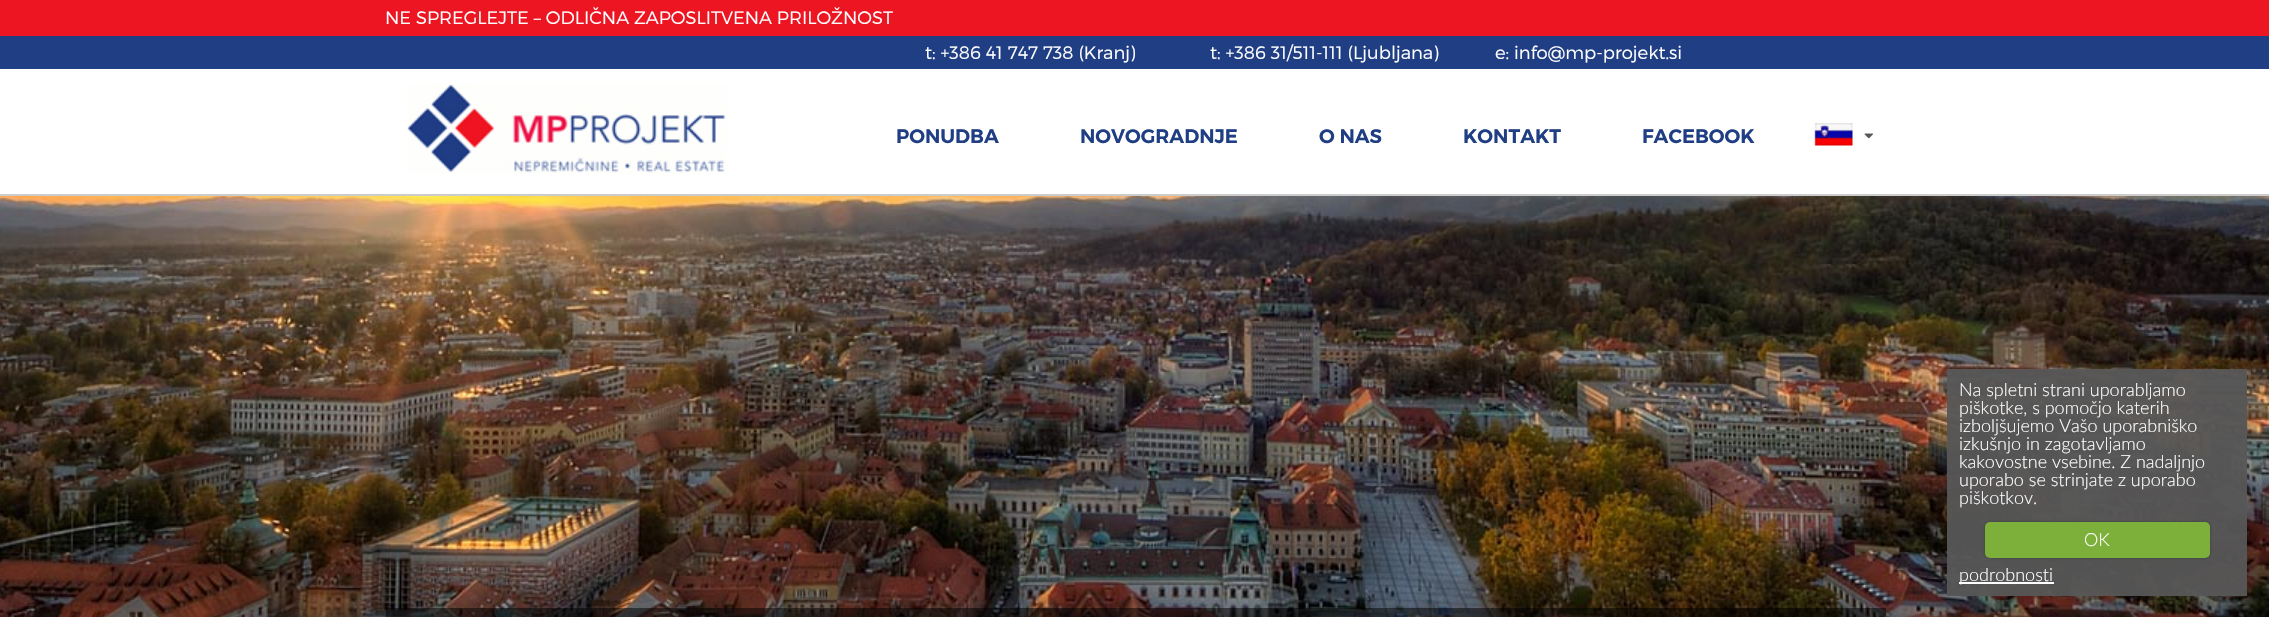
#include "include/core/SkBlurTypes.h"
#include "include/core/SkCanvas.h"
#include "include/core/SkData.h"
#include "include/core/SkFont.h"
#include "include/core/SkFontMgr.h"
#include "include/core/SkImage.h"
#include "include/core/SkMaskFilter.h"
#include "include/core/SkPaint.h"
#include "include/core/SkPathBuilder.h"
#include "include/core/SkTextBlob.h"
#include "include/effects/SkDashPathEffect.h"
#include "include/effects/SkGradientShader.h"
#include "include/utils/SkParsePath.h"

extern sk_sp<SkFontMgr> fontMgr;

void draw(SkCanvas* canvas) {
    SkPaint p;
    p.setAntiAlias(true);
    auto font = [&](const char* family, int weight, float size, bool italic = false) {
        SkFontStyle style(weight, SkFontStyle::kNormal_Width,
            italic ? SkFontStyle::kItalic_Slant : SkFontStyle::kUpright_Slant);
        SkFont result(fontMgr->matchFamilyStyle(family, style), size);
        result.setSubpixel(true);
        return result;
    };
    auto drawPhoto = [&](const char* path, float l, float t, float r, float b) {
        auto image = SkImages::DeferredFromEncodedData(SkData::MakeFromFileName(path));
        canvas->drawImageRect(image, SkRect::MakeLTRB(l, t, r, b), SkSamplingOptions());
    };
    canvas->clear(0xFFFFFFFF);
    p.setColor(0xFFCCCCCC);
    canvas->drawRect(SkRect::MakeLTRB(0, 194, 2269, 196), p);
    p.setColor(0xFFED1522);
    canvas->drawRect(SkRect::MakeLTRB(0, 0, 2269, 36), p);
    auto font1 = font("Montserrat", 300, 18);
    p.setColor(0xFFFFFFFF);
    canvas->drawString("NE SPREGLEJTE – ODLIČNA ZAPOSLITVENA PRILOŽNOST", 385, 24, font1, p);
    p.setColor(0xFF203E84);
    canvas->drawRect(SkRect::MakeLTRB(0, 36, 2269, 69), p);
    p.setColor(0xFFFFFFFF);
    {
        const struct { const char* s; float x, y; } items[] = {
            {"t: +386 41 747 738 (Kranj)", 925, 59},
            {"t: +386 31/511-111 (Ljubljana)", 1210, 59},
            {"e: info@mp-projekt.si", 1495, 59},
        };
        for (auto [s, x, y] : items) {
            canvas->drawString(s, x, y, font1, p);
        }
    }
    drawPhoto("media/1.png", 407, 84, 727, 174);
    auto font2 = font("Montserrat", 600, 19.5f);
    p.setColor(0xFF203E84);
    {
        const struct { const char* s; float x, y; } items[] = {
            {"PONUDBA", 896, 143},
            {"NOVOGRADNJE", 1080, 143},
            {"O NAS", 1319, 143},
            {"KONTAKT", 1463, 143},
            {"FACEBOOK", 1642, 143},
        };
        for (auto [s, x, y] : items) {
            canvas->drawString(s, x, y, font2, p);
        }
    }
    drawPhoto("media/2.png", 1814, 123, 1853, 146);
    drawPhoto("media/3.png", 1864, 133, 1873, 139);
    drawPhoto("media/4.png", 0, 196, 2269, 617);
    p.setColor(0xF2565656);
    canvas->drawRect(SkRect::MakeLTRB(1947, 369, 2247, 596), p);
    auto font3 = font("Lato", 300, 18);
    p.setColor(0xFFFFFFFF);
    {
        const struct { const char* s; float x, y; } items[] = {
            {"Na spletni strani uporabljamo", 1959, 396},
            {"piškotke, s pomočjo katerih", 1959, 414},
            {"izboljšujemo Vašo uporabniško", 1959, 432},
            {"izkušnjo in zagotavljamo", 1959, 450},
            {"kakovostne vsebine. Z nadaljnjo", 1959, 468},
            {"uporabo se strinjate z uporabo", 1959, 486},
            {"piškotkov.", 1959, 504},
        };
        for (auto [s, x, y] : items) {
            canvas->drawString(s, x, y, font3, p);
        }
    }
    p.setColor(0x40000000);
    p.setMaskFilter(SkMaskFilter::MakeBlur(kNormal_SkBlurStyle, 1.5f));
    canvas->drawRoundRect(SkRect::MakeLTRB(1985, 522, 2210, 558), 5, 5, p);
    p.setMaskFilter(nullptr);
    p.setColor(0xFF7DAF3B);
    canvas->drawRoundRect(SkRect::MakeLTRB(1985, 522, 2210, 558), 5, 5, p);
    p.setColor(0xFFFFFFFF);
    canvas->drawString("OK", 2084, 546, font3, p);
    canvas->drawRect(SkRect::MakeLTRB(1959, 582, 2054, 584), p);
    canvas->drawString("podrobnosti", 1959, 581, font3, p);
    p.setColor(0x80000000);
    canvas->drawRect(SkRect::MakeLTRB(386, 608, 1886, 617), p);
}
